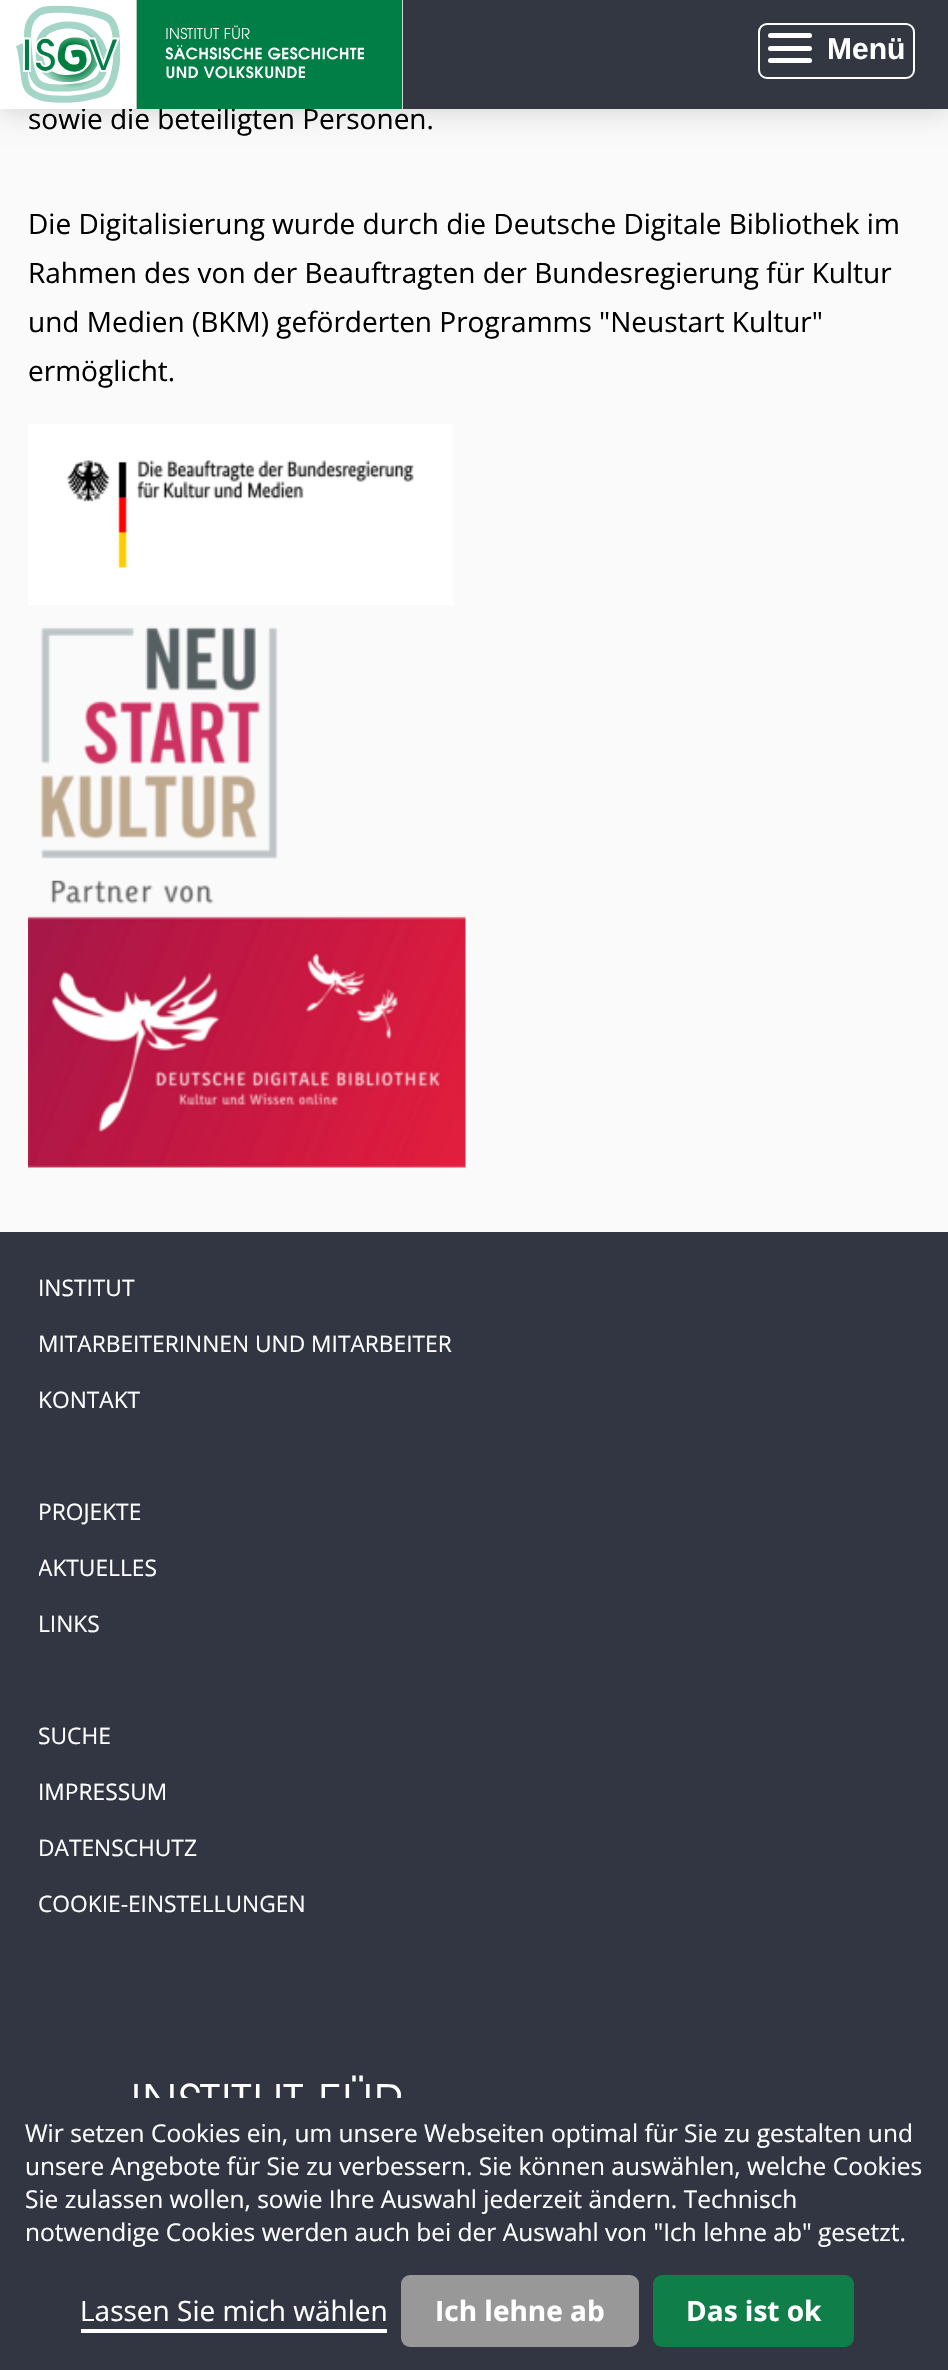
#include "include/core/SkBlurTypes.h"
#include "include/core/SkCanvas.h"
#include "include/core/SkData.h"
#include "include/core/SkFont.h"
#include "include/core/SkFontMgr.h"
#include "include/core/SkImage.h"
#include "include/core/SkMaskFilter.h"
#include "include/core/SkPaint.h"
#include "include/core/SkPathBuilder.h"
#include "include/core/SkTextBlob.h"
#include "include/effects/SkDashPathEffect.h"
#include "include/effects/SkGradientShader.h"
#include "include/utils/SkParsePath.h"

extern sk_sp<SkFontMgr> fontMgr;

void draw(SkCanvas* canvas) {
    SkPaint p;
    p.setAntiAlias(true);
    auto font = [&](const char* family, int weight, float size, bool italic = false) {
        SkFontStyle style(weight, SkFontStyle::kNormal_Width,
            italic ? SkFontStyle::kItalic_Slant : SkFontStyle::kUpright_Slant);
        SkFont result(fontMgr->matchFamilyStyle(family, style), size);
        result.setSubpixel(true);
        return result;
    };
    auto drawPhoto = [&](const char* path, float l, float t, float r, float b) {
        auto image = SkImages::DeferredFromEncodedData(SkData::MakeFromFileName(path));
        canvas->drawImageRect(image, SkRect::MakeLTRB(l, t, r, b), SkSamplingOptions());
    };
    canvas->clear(0xFFFAFAFA);
    p.setColor(0x21000000);
    p.setMaskFilter(SkMaskFilter::MakeBlur(kNormal_SkBlurStyle, 11.5f));
    canvas->drawRect(SkRect::MakeLTRB(0, 5, 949, 114), p);
    p.setMaskFilter(nullptr);
    auto font1 = font("Open Sans", 400, 28);
    p.setColor(0xFF000000);
    canvas->drawString("sowie die beteiligten Personen.", 28, 129, font1, p);
    p.setColor(0xFF323742);
    canvas->drawRect(SkRect::MakeLTRB(403, 0, 948, 109), p);
    p.setColor(0xFFFFFFFF);
    canvas->drawRect(SkRect::MakeLTRB(0, 0, 403, 109), p);
    drawPhoto("media/1.png", 16, 0, 403, 109);
    p.setStyle(SkPaint::kStroke_Style);
    p.setStrokeWidth(2);
    canvas->drawRoundRect(SkRect::MakeLTRB(759, 24, 914, 78), 8, 8, p);
    p.setStyle(SkPaint::kFill_Style);
    canvas->drawRoundRect(SkRect::MakeLTRB(768, 58, 812, 63), 2.5f, 2.5f, p);
    canvas->drawRoundRect(SkRect::MakeLTRB(768, 46, 812, 51), 2.5f, 2.5f, p);
    canvas->drawRoundRect(SkRect::MakeLTRB(768, 33, 812, 38), 2.5f, 2.5f, p);
    auto font2 = font("Liberation Sans", 700, 30);
    canvas->drawString("Menü", 827, 59, font2, p);
    p.setColor(0xFF000000);
    {
        const struct { const char* s; float x, y; } items[] = {
            {"Die Digitalisierung wurde durch die Deutsche Digitale Bibliothek im", 28, 234},
            {"Rahmen des von der Beauftragten der Bundesregierung für Kultur", 28, 283},
            {"und Medien (BKM) geförderten Programms \"Neustart Kultur\"", 28, 332},
            {"ermöglicht.", 28, 381},
        };
        for (auto [s, x, y] : items) {
            canvas->drawString(s, x, y, font1, p);
        }
    }
    drawPhoto("media/2.png", 28, 424, 453, 605);
    drawPhoto("media/3.png", 40, 626, 278, 859);
    drawPhoto("media/4.png", 28, 880, 466, 1168);
    p.setColor(0xFF313642);
    canvas->drawRect(SkRect::MakeLTRB(0, 1232, 948, 2370), p);
    auto font3 = font("Open Sans", 400, 22.75f);
    p.setColor(0xFFFFFFFF);
    {
        const struct { const char* s; float x, y; } items[] = {
            {"INSTITUT", 38, 1296},
            {"MITARBEITERINNEN UND MITARBEITER", 38, 1352},
            {"KONTAKT", 38, 1408},
            {"PROJEKTE", 38, 1520},
        };
        for (auto [s, x, y] : items) {
            canvas->drawString(s, x, y, font3, p);
        }
    }
    canvas->save();
    canvas->clipRect(SkRect::MakeLTRB(39, 1456, 893, 1680));
    canvas->drawString("AKTUELLES", 38, 1576, font3, p);
    canvas->restore();
    {
        const struct { const char* s; float x, y; } items[] = {
            {"LINKS", 38, 1632},
            {"SUCHE", 38, 1744},
            {"IMPRESSUM", 38, 1800},
            {"DATENSCHUTZ", 38, 1856},
            {"COOKIE-EINSTELLUNGEN", 38, 1912},
        };
        for (auto [s, x, y] : items) {
            canvas->drawString(s, x, y, font3, p);
        }
    }
    drawPhoto("media/5.png", 134, 2075, 402, 2098);
    auto font4 = font("Open Sans", 400, 24.5f);
    {
        const struct { const char* s; float x, y; } items[] = {
            {"Wir setzen Cookies ein, um unsere Webseiten optimal für Sie zu gestalten und", 25, 2142},
            {"unsere Angebote für Sie zu verbessern. Sie können auswählen, welche Cookies", 25, 2175},
            {"Sie zulassen wollen, sowie Ihre Auswahl jederzeit ändern. Technisch", 25, 2208},
            {"notwendige Cookies werden auch bei der Auswahl von \"Ich lehne ab\" gesetzt.", 25, 2241},
        };
        for (auto [s, x, y] : items) {
            canvas->drawString(s, x, y, font4, p);
        }
    }
    canvas->drawRect(SkRect::MakeLTRB(81, 2329, 387, 2333), p);
    canvas->drawString("Lassen Sie mich wählen", 80, 2321, font1, p);
    p.setColor(0xFF989898);
    canvas->drawRoundRect(SkRect::MakeLTRB(401, 2275, 639, 2347), 9, 9, p);
    auto font5 = font("Open Sans", 700, 28);
    p.setColor(0xFFFFFFFF);
    canvas->drawString("Ich lehne ab", 435, 2321, font5, p);
    p.setColor(0xFF0F7E48);
    canvas->drawRoundRect(SkRect::MakeLTRB(653, 2275, 854, 2347), 9, 9, p);
    p.setColor(0xFFFFFFFF);
    canvas->drawString("Das ist ok", 686, 2321, font5, p);
}
